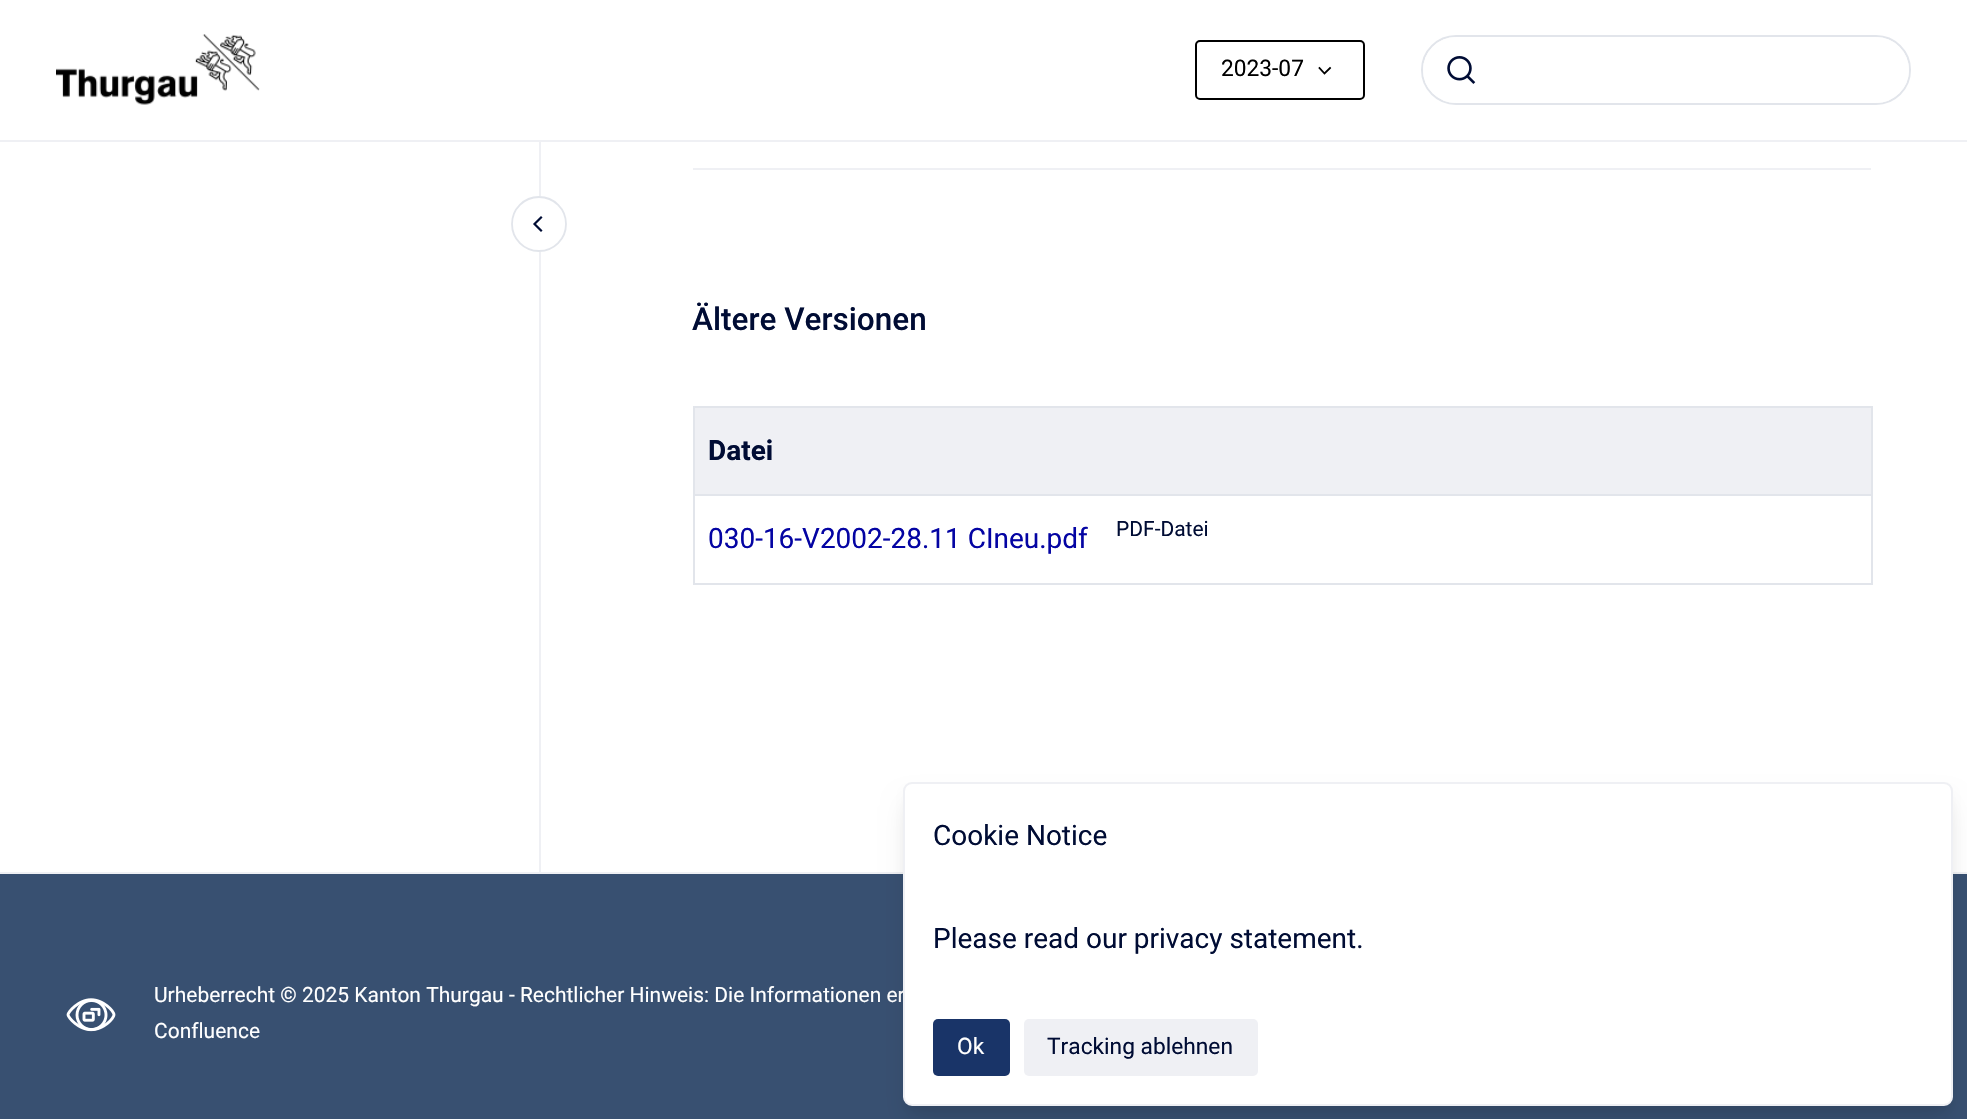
#include "include/core/SkBlurTypes.h"
#include "include/core/SkCanvas.h"
#include "include/core/SkData.h"
#include "include/core/SkFont.h"
#include "include/core/SkFontMgr.h"
#include "include/core/SkImage.h"
#include "include/core/SkMaskFilter.h"
#include "include/core/SkPaint.h"
#include "include/core/SkPathBuilder.h"
#include "include/core/SkTextBlob.h"
#include "include/effects/SkDashPathEffect.h"
#include "include/effects/SkGradientShader.h"
#include "include/utils/SkParsePath.h"

extern sk_sp<SkFontMgr> fontMgr;

void draw(SkCanvas* canvas) {
    SkPaint p;
    p.setAntiAlias(true);
    auto font = [&](const char* family, int weight, float size, bool italic = false) {
        SkFontStyle style(weight, SkFontStyle::kNormal_Width,
            italic ? SkFontStyle::kItalic_Slant : SkFontStyle::kUpright_Slant);
        SkFont result(fontMgr->matchFamilyStyle(family, style), size);
        result.setSubpixel(true);
        return result;
    };
    auto drawPhoto = [&](const char* path, float l, float t, float r, float b) {
        auto image = SkImages::DeferredFromEncodedData(SkData::MakeFromFileName(path));
        canvas->drawImageRect(image, SkRect::MakeLTRB(l, t, r, b), SkSamplingOptions());
    };
    canvas->clear(0xFFFFFFFF);
    p.setColor(0xFFEFF0F4);
    canvas->drawRect(SkRect::MakeLTRB(0, 140, 1967, 142), p);
    drawPhoto("media/1.png", 56, 34, 260, 105);
    p.setStyle(SkPaint::kStroke_Style);
    p.setStrokeWidth(2);
    p.setColor(0xFF000000);
    canvas->drawRoundRect(SkRect::MakeLTRB(1196, 41, 1364, 99), 4, 4, p);
    auto font1 = font("Roboto", 400, 22.75f);
    p.setStyle(SkPaint::kFill_Style);
    canvas->drawString("2023-07", 1221, 76, font1, p);
    p.setStyle(SkPaint::kStroke_Style);
    p.setStrokeWidth(1.8f);
    p.setStrokeCap(SkPaint::kSquare_Cap);
    canvas->drawPath(SkPathBuilder().moveTo(1330, 68).lineTo(1324.5f, 73.5f).lineTo(1319.5f, 68).detach(), p);
    p.setStrokeWidth(2);
    p.setStrokeCap(SkPaint::kButt_Cap);
    p.setColor(0xFFE2E5EB);
    canvas->drawRoundRect(SkRect::MakeLTRB(1422, 36, 1910, 104), 34, 34, p);
    p.setStyle(SkPaint::kFill_Style);
    p.setColor(0xFFFFFFFF);
    canvas->drawRoundRect(SkRect::MakeLTRB(1423, 37, 1909, 103), 33, 33, p);
    drawPhoto("media/2.png", 1447, 56, 1476, 84);
    p.setColor(0xFFEFF0F4);
    canvas->drawRect(SkRect::MakeLTRB(539, 142, 541, 872), p);
    p.setColor(0xFFFFFFFF);
    canvas->drawPath(SkPathBuilder().moveTo(539, 252).cubicTo(524, 252, 511, 239, 511, 224).cubicTo(511, 209, 524, 196, 539, 196).cubicTo(554, 196, 567, 209, 567, 224).cubicTo(567, 239, 554, 252, 539, 252).close().detach(), p);
    p.setStyle(SkPaint::kStroke_Style);
    p.setStrokeWidth(1.8f);
    p.setColor(0xFFE2E5EB);
    canvas->drawPath(SkPathBuilder().moveTo(539, 251).cubicTo(524, 251, 512, 239, 512, 224).cubicTo(512, 209, 524, 197, 539, 197).cubicTo(554, 197, 566, 209, 566, 224).cubicTo(566, 239, 554, 251, 539, 251).close().detach(), p);
    p.setStrokeWidth(2.2f);
    p.setStrokeCap(SkPaint::kSquare_Cap);
    p.setColor(0xFF000C34);
    canvas->drawPath(SkPathBuilder().moveTo(541, 230.5f).lineTo(534.5f, 224).lineTo(541, 217.5f).detach(), p);
    p.setStyle(SkPaint::kFill_Style);
    p.setColor(0xFFEFF0F4);
    canvas->drawRect(SkRect::MakeLTRB(693, 168, 1871, 170), p);
    auto font2 = font("Roboto", 500, 31.5f);
    p.setColor(0xFF000C34);
    canvas->drawString("Ältere Versionen", 692, 330, font2, p);
    {
        const struct { float l, t, r, b; SkColor color; } items[] = {
            {693, 406, 1873, 408, 0xFFE2E5EB},
            {1871, 406, 1873, 585, 0xFFE2E5EB},
            {693, 583, 1873, 585, 0xFFE2E5EB},
            {693, 406, 695, 585, 0xFFE2E5EB},
            {695, 408, 1871, 494, 0xFFEFF0F4},
        };
        for (auto [l, t, r, b, color] : items) {
            p.setColor(color);
            canvas->drawRect(SkRect::MakeLTRB(l, t, r, b), p);
        }
    }
    auto font3 = font("Roboto", 700, 28);
    p.setColor(0xFF000C34);
    canvas->drawString("Datei", 708, 460, font3, p);
    p.setColor(0xFFE2E5EB);
    canvas->drawRect(SkRect::MakeLTRB(693, 494, 1873, 496), p);
    auto font4 = font("Roboto", 400, 28);
    p.setColor(0xFF0404A3);
    canvas->drawString("030-16-V2002-28.11 CIneu.pdf", 708, 548, font4, p);
    auto font5 = font("Roboto", 400, 21);
    p.setColor(0xFF000C34);
    canvas->drawString("PDF-Datei", 1116, 536, font5, p);
    p.setColor(0xFF385071);
    canvas->drawRect(SkRect::MakeLTRB(0, 874, 1967, 1119), p);
    p.setColor(0xFFEFF0F4);
    canvas->drawRect(SkRect::MakeLTRB(0, 872, 1967, 874), p);
    drawPhoto("media/3.png", 66, 998, 116, 1032);
    p.setColor(0xFFFFFFFF);
    canvas->drawString("Urheberrecht © 2025 Kanton Thurgau - Rechtlicher Hinweis: Die Informationen er", 154, 1002, font5, p);
    canvas->drawString("Confluence", 154, 1038, font5, p);
    p.setColor(0x0D000000);
    p.setMaskFilter(SkMaskFilter::MakeBlur(kNormal_SkBlurStyle, 5));
    canvas->drawRoundRect(SkRect::MakeLTRB(907, 793, 1950, 1110), 5, 5, p);
    p.setMaskFilter(nullptr);
    p.setColor(0x1A000000);
    p.setMaskFilter(SkMaskFilter::MakeBlur(kNormal_SkBlurStyle, 13));
    canvas->drawRoundRect(SkRect::MakeLTRB(908, 805, 1948, 1118), 4, 4, p);
    p.setMaskFilter(nullptr);
    p.setColor(0xFFFFFFFF);
    canvas->drawRoundRect(SkRect::MakeLTRB(904, 783, 1952, 1105), 8, 8, p);
    p.setStyle(SkPaint::kStroke_Style);
    p.setStrokeWidth(2);
    p.setStrokeCap(SkPaint::kButt_Cap);
    p.setColor(0xFFEFF0F4);
    canvas->drawRoundRect(SkRect::MakeLTRB(904, 783, 1952, 1105), 8, 8, p);
    p.setStyle(SkPaint::kFill_Style);
    p.setColor(0xFF000C34);
    canvas->drawString("Cookie Notice", 933, 845, font4, p);
    canvas->drawString("Please read our privacy statement.", 933, 948, font4, p);
    p.setColor(0xFF193468);
    canvas->drawRoundRect(SkRect::MakeLTRB(933, 1019, 1010, 1076), 5, 5, p);
    p.setColor(0xFFFFFFFF);
    canvas->drawString("Ok", 957, 1054, font1, p);
    p.setColor(0xFFEFF0F4);
    canvas->drawRoundRect(SkRect::MakeLTRB(1024, 1019, 1258, 1076), 5, 5, p);
    p.setColor(0xFF000C34);
    canvas->drawString("Tracking ablehnen", 1047, 1054, font1, p);
}
